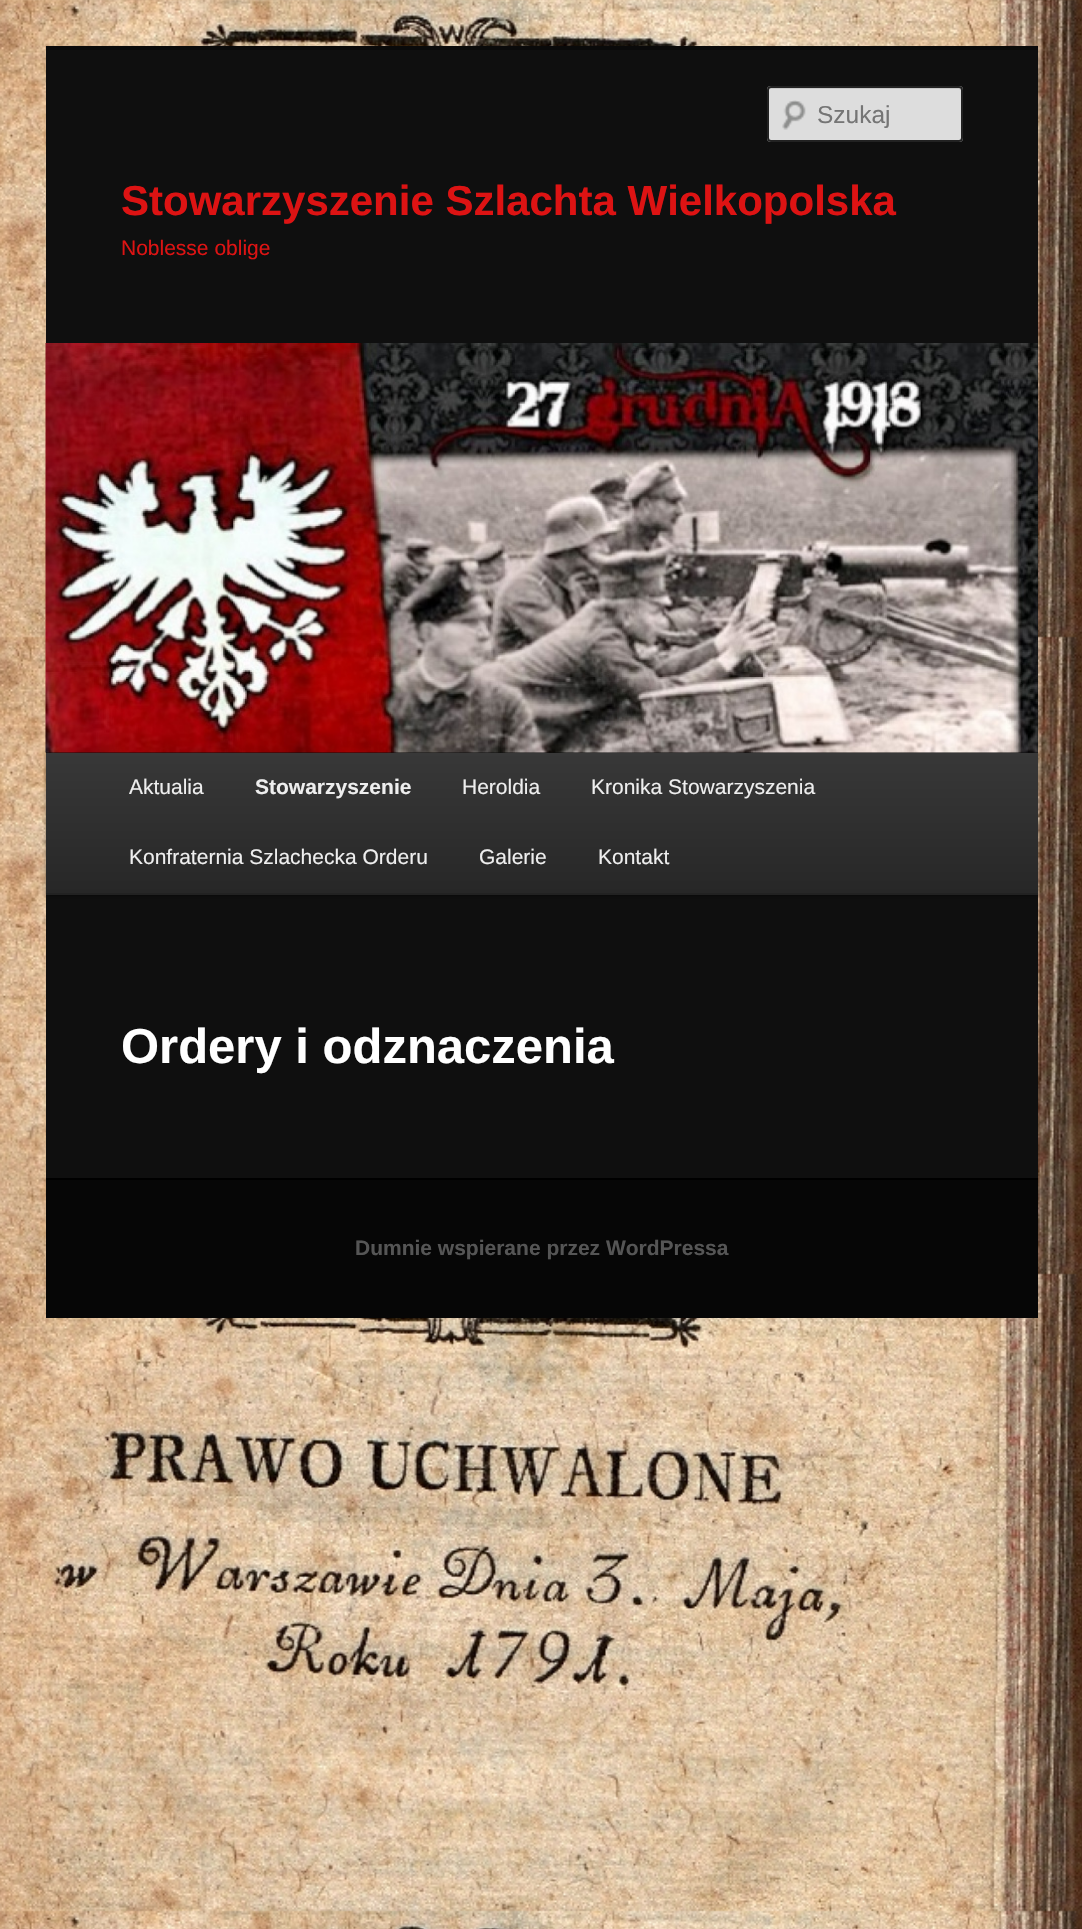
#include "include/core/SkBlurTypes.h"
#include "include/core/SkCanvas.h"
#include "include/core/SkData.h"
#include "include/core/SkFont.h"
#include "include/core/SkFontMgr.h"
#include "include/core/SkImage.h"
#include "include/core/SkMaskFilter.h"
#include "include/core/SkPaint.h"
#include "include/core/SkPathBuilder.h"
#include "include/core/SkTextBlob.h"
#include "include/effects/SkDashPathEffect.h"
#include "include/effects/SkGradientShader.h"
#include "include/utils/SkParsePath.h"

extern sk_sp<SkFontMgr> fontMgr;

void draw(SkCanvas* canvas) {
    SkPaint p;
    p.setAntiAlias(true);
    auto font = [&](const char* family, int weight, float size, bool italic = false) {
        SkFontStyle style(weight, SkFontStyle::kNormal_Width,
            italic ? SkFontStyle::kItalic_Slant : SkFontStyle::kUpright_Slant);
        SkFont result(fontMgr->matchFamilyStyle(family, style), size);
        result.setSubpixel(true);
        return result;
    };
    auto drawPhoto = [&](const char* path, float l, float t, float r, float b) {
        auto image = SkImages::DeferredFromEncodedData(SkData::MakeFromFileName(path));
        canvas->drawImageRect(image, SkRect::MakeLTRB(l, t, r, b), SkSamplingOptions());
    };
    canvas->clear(0xFFFFFFFF);
    drawPhoto("media/1.png", 0, 0, 1082, 1929);
    p.setColor(0xFF0F0F0F);
    canvas->drawRect(SkRect::MakeLTRB(46, 50, 1038, 1178), p);
    p.setColor(0xFF0A0A0A);
    canvas->drawRect(SkRect::MakeLTRB(46, 46, 1038, 50), p);
    p.setColor(0xFFDDDDDD);
    canvas->drawRoundRect(SkRect::MakeLTRB(767, 86, 963, 142), 4, 4, p);
    drawPhoto("media/2.png", 782, 100, 806, 130);
    p.setColor(0xFFC7C7C7);
    canvas->drawPath(SkPathBuilder().moveTo(770, 89).lineTo(959, 89).lineTo(961, 90).lineTo(961, 91).lineTo(961, 90).cubicTo(961, 89, 960, 88, 959, 88).lineTo(770, 88).cubicTo(769, 88, 768, 89, 768, 90).lineTo(768, 91).cubicTo(768, 90, 769, 89, 770, 89).close().detach(), p);
    p.setStyle(SkPaint::kStroke_Style);
    p.setStrokeWidth(2);
    p.setColor(0xFF222222);
    canvas->drawRoundRect(SkRect::MakeLTRB(768, 87, 962, 141), 3, 3, p);
    auto font1 = font("Liberation Sans", 400, 24.5f);
    p.setStyle(SkPaint::kFill_Style);
    p.setColor(0xFF757575);
    canvas->drawString("Szukaj", 817, 123, font1, p);
    auto font2 = font("Liberation Sans", 700, 42);
    p.setColor(0xFFDD1313);
    canvas->drawString("Stowarzyszenie Szlachta Wielkopolska", 121, 215, font2, p);
    auto font3 = font("Liberation Sans", 400, 21);
    canvas->drawString("Noblesse oblige", 121, 255, font3, p);
    p.setColor(0x66000000);
    p.setMaskFilter(SkMaskFilter::MakeBlur(kNormal_SkBlurStyle, 2));
    canvas->drawRect(SkRect::MakeLTRB(46, 754, 1038, 896), p);
    p.setMaskFilter(nullptr);
    drawPhoto("media/3.png", 45, 343, 1038, 753);
    {
        const SkColor colors[] = {0xFF383838, 0xFF272727};
        const float stops[] = {0, 1};
        const SkPoint ends[] = {{542, 752}, {542, 893}};
        p.setShader(SkGradientShader::MakeLinear(ends, colors, stops, 2, SkTileMode::kClamp));
        p.setAlpha(255);
    }
    canvas->drawRect(SkRect::MakeLTRB(46, 753, 1038, 893), p);
    p.setShader(nullptr);
    p.setColor(0xFF222222);
    canvas->drawRect(SkRect::MakeLTRB(46, 893, 1038, 895), p);
    p.setColor(0xFFEEEEEE);
    canvas->drawString("Aktualia", 129, 794, font3, p);
    auto font4 = font("Liberation Sans", 700, 21);
    canvas->drawString("Stowarzyszenie", 255, 794, font4, p);
    {
        const struct { const char* s; float x, y; } items[] = {
            {"Heroldia", 462, 794},
            {"Kronika Stowarzyszenia", 591, 794},
            {"Konfraternia Szlachecka Orderu", 129, 864},
            {"Galerie", 479, 864},
            {"Kontakt", 598, 864},
        };
        for (auto [s, x, y] : items) {
            canvas->drawString(s, x, y, font3, p);
        }
    }
    auto font5 = font("Liberation Sans", 700, 49);
    p.setColor(0xFFFFFFFF);
    canvas->drawString("Ordery i odznaczenia", 121, 1063, font5, p);
    p.setColor(0xFF060606);
    canvas->drawRect(SkRect::MakeLTRB(46, 1180, 1038, 1318), p);
    p.setColor(0xFF000000);
    canvas->drawRect(SkRect::MakeLTRB(46, 1178, 1038, 1180), p);
    p.setColor(0xFF555555);
    canvas->drawString("Dumnie wspierane przez WordPressa", 355, 1255, font4, p);
}
